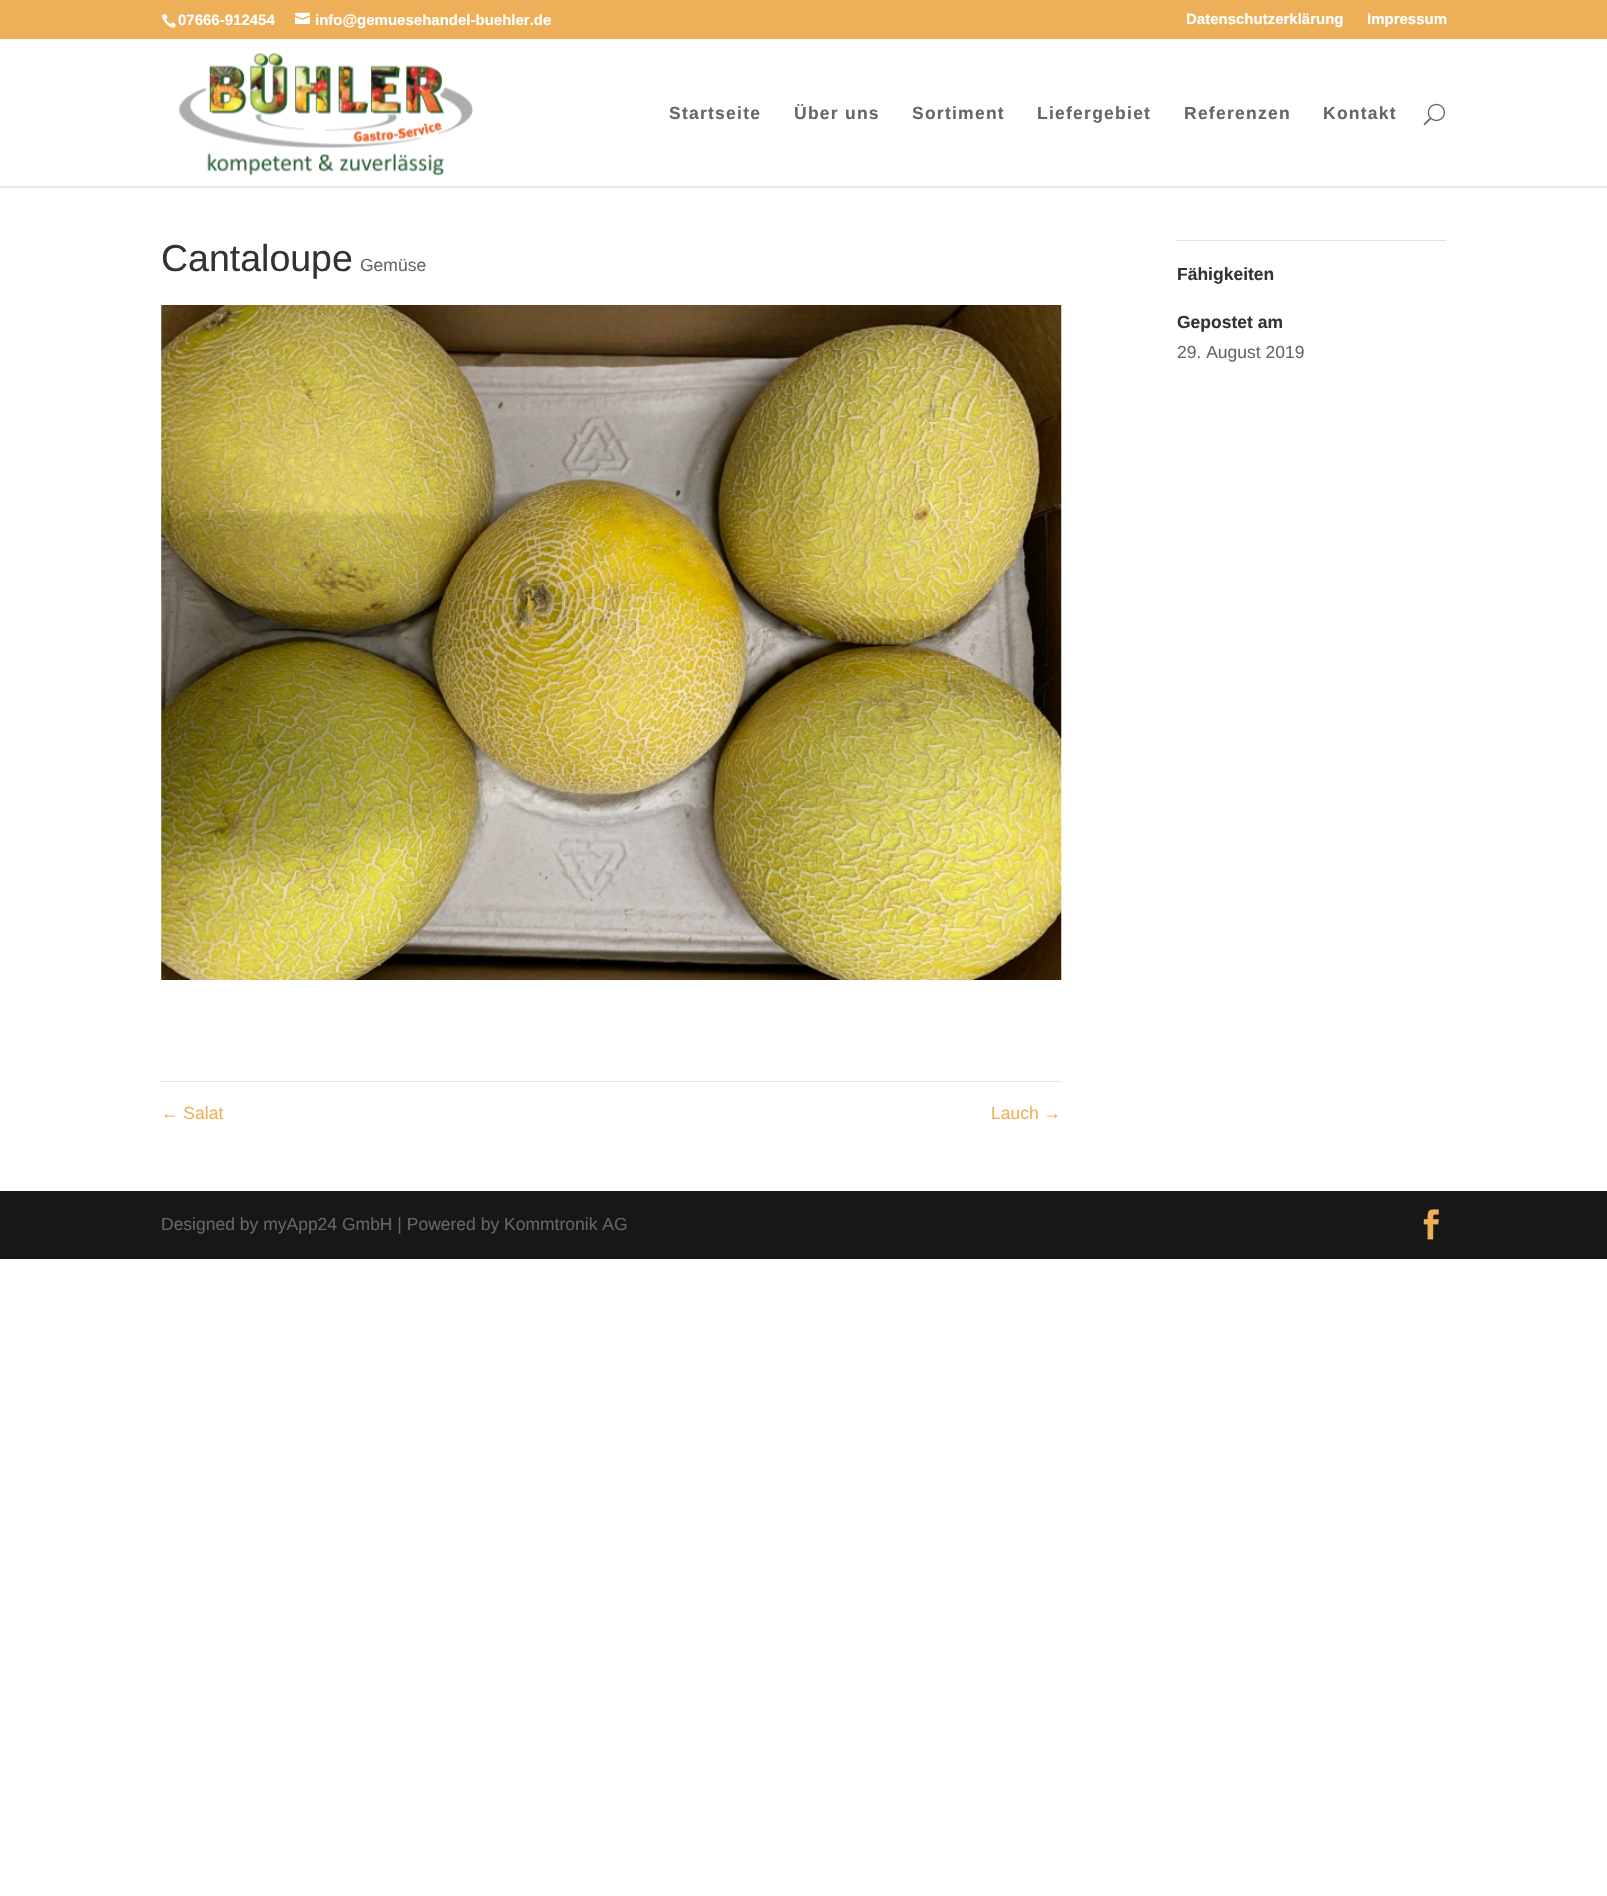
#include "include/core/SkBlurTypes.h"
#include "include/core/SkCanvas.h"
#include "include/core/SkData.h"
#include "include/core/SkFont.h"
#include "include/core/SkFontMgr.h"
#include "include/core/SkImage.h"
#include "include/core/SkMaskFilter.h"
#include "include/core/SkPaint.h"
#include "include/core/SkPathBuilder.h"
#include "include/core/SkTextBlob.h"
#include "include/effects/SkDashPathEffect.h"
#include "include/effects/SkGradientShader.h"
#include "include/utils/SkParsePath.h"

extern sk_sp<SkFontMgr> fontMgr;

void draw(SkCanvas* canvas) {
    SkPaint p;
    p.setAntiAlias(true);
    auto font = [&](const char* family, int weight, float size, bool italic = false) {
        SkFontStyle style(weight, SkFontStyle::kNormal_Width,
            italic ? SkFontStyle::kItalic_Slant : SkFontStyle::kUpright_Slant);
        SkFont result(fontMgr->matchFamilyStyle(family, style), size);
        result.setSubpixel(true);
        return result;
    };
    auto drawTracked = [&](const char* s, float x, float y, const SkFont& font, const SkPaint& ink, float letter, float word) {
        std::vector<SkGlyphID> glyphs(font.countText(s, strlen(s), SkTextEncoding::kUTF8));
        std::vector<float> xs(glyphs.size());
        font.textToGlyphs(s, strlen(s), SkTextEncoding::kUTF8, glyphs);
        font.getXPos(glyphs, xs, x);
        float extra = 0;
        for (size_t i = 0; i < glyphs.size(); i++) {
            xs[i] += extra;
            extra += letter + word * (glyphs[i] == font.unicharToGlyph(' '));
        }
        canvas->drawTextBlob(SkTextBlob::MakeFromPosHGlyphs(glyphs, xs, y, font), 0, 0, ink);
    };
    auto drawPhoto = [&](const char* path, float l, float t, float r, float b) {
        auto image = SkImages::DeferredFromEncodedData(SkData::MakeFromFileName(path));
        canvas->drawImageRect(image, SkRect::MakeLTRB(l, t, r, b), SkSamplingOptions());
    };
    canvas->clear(0xFFFFFFFF);
    p.setColor(0xFFEDB059);
    canvas->drawRect(SkRect::MakeLTRB(0, 0, 1607, 39), p);
    drawPhoto("media/1.png", 161, 14, 176, 28);
    auto font1 = font("Liberation Sans", 700, 15);
    p.setColor(0xFFFFFFFF);
    canvas->drawString("07666-912454", 178, 25, font1, p);
    drawPhoto("media/2.png", 295, 12, 310, 25);
    {
        const struct { const char* s; float x, y; } items[] = {
            {"info@gemuesehandel-buehler.de", 315, 25},
            {"Datenschutzerklärung", 1186, 24},
            {"Impressum", 1367, 24},
        };
        for (auto [s, x, y] : items) {
            canvas->drawString(s, x, y, font1, p);
        }
    }
    p.setColor(0xFFE6E6E6);
    canvas->drawPath(SkPathBuilder().moveTo(0, 186).lineTo(0, 188).lineTo(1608, 188).lineTo(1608, 40).lineTo(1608, 186).close().detach(), p);
    drawPhoto("media/3.png", 178, 53, 473, 176);
    auto font2 = font("Liberation Sans", 700, 17.5f);
    p.setColor(0xFF666666);
    {
        const struct { const char* s; float x, y; } items[] = {
            {"Startseite", 669, 119},
            {"Über uns", 794, 119},
            {"Sortiment", 912, 119},
            {"Liefergebiet", 1037, 119},
            {"Referenzen", 1184, 119},
            {"Kontakt", 1323, 119},
        };
        for (auto [s, x, y] : items) {
            drawTracked(s, x, y, font2, p, 1.25f, 0);
        }
    }
    drawPhoto("media/4.png", 1423, 103, 1445, 126);
    auto font3 = font("Liberation Sans", 400, 37.5f);
    p.setColor(0xFF333333);
    canvas->drawString("Cantaloupe", 161, 271, font3, p);
    auto font4 = font("Liberation Sans", 400, 17.5f);
    p.setColor(0xFF666666);
    canvas->drawString("Gemüse", 360, 271, font4, p);
    drawPhoto("media/5.png", 161, 305, 1062, 980);
    p.setColor(0xFFE2E2E2);
    canvas->drawRect(SkRect::MakeLTRB(161, 1081, 1061, 1082), p);
    p.setColor(0xFFEDB059);
    canvas->drawString("← Salat", 161, 1119, font4, p);
    canvas->drawString("Lauch →", 991, 1119, font4, p);
    p.setColor(0xFFE2E2E2);
    canvas->drawRect(SkRect::MakeLTRB(1176, 240, 1446, 241), p);
    p.setColor(0xFF333333);
    canvas->drawString("Fähigkeiten", 1177, 280, font2, p);
    canvas->drawString("Gepostet am", 1177, 328, font2, p);
    p.setColor(0xFF666666);
    canvas->drawString("29. August 2019", 1177, 358, font4, p);
    p.setColor(0xFF171717);
    canvas->drawRect(SkRect::MakeLTRB(0, 1191, 1607, 1259), p);
    p.setColor(0xFF666666);
    canvas->drawString("Designed by myApp24 GmbH | Powered by Kommtronik AG", 161, 1230, font4, p);
    drawPhoto("media/6.png", 1423, 1209, 1439, 1240);
}
